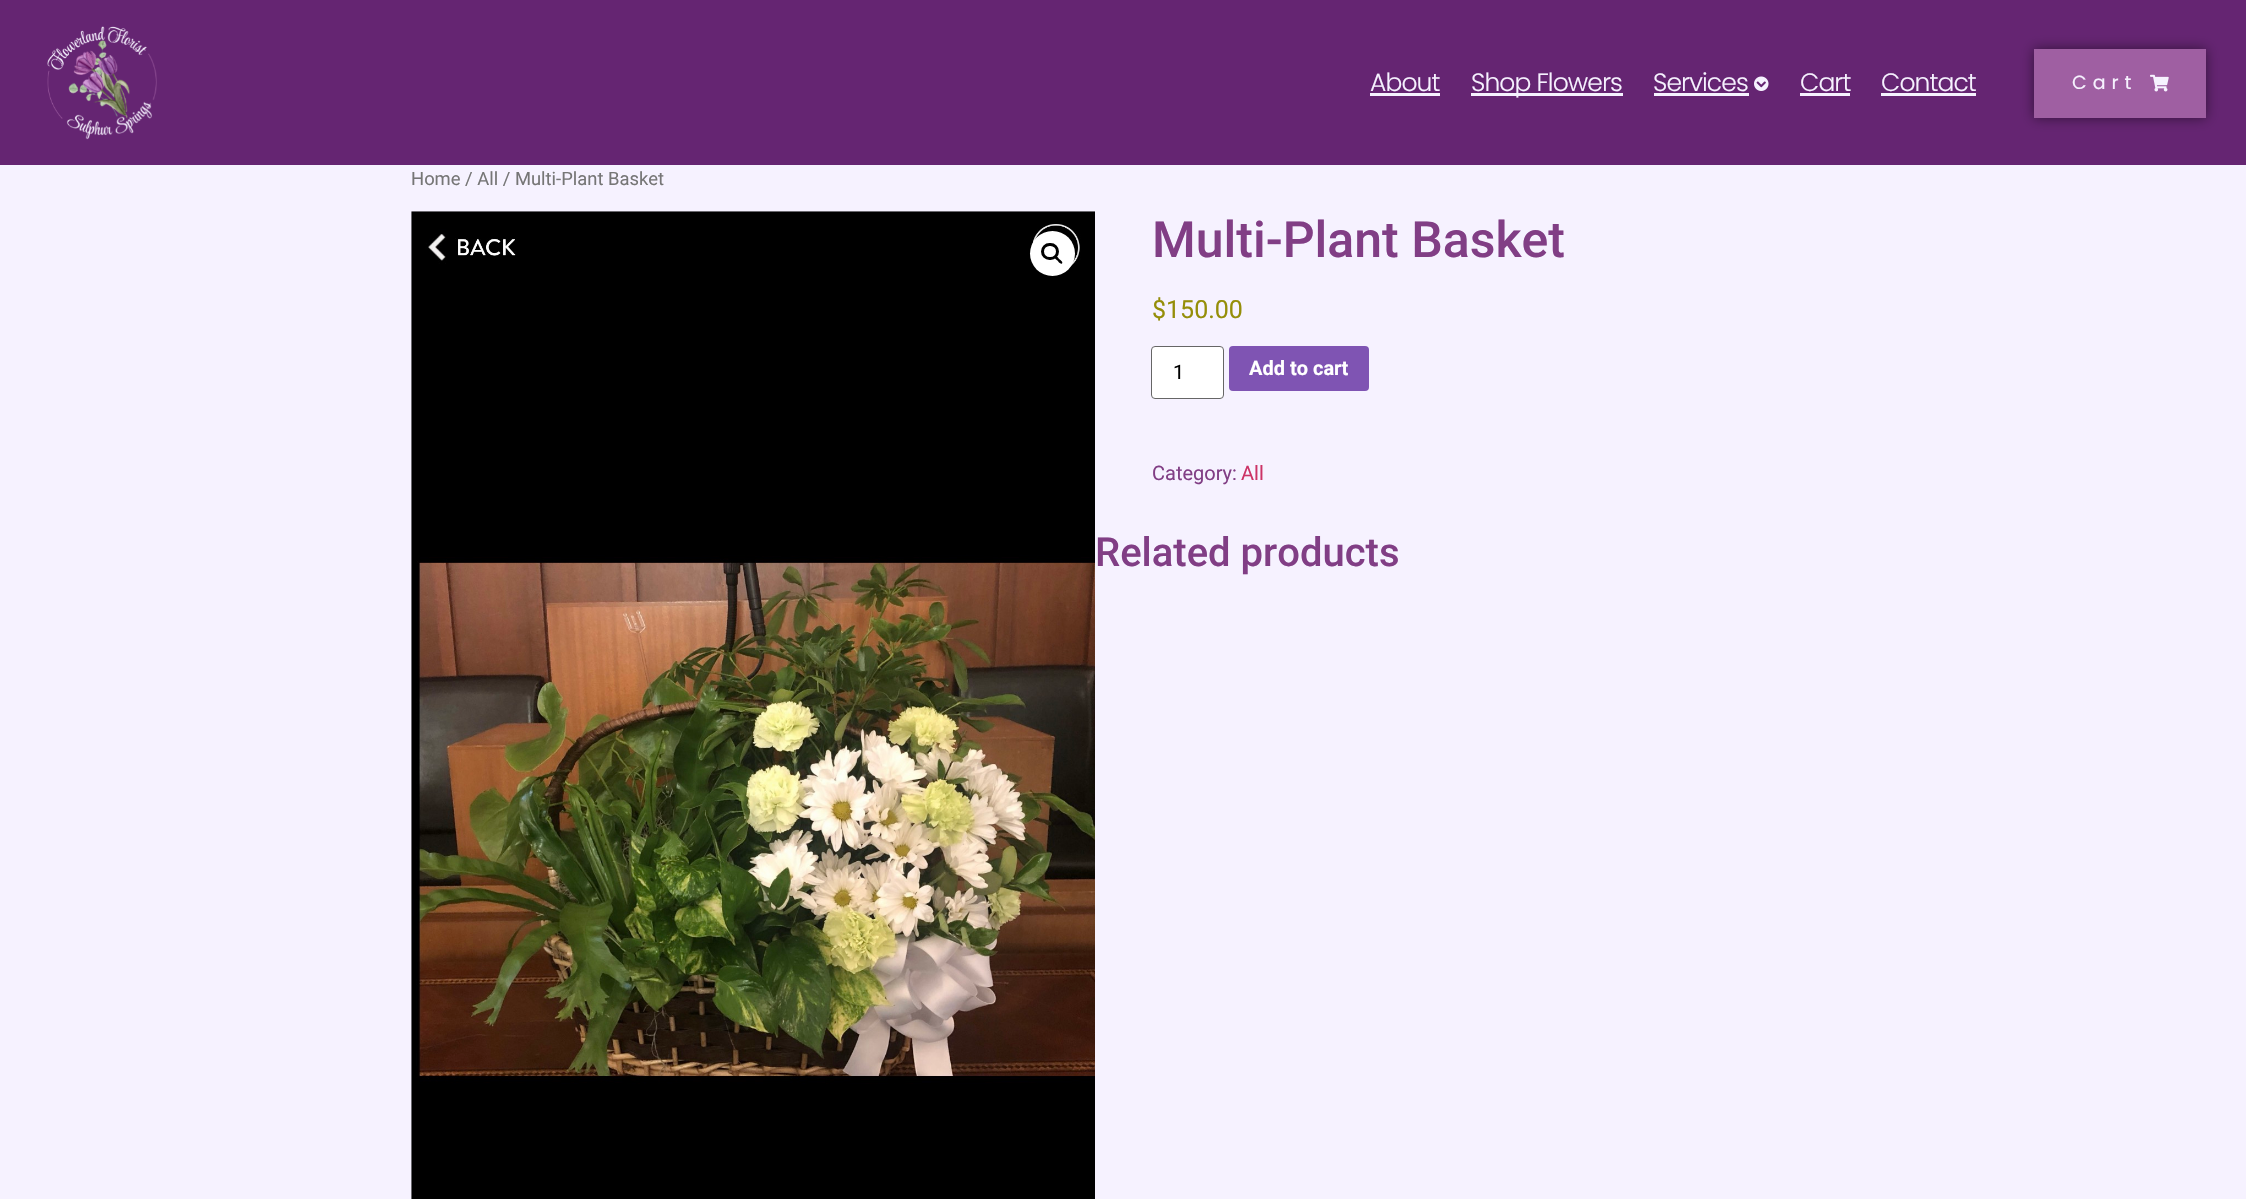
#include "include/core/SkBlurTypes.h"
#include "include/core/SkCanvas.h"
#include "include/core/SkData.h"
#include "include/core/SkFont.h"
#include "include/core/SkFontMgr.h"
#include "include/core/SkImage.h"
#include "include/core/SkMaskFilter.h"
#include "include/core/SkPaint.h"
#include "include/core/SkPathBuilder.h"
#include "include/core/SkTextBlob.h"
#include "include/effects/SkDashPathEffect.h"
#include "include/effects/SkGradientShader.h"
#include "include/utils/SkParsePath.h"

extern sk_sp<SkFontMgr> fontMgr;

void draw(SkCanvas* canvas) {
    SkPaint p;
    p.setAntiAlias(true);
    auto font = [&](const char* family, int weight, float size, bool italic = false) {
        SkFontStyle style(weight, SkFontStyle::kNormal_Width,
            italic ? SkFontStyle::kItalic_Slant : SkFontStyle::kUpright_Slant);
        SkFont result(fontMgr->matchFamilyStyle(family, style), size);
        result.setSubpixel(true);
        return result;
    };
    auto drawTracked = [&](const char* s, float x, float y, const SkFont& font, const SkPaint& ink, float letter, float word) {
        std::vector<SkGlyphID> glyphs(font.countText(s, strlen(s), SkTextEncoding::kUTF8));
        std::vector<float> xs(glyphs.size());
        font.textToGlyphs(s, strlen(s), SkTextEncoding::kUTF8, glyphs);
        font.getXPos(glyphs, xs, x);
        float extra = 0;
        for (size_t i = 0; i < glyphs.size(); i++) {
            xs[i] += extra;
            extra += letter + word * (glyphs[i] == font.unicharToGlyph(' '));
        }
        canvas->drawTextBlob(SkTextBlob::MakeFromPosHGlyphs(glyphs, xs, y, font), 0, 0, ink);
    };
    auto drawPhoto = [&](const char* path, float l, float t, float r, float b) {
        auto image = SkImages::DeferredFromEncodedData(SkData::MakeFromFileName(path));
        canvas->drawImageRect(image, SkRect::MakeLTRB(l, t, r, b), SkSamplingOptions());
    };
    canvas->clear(0xFFF6F2FF);
    p.setColor(0xFF652572);
    canvas->drawRect(SkRect::MakeLTRB(0, 0, 2246, 165), p);
    drawPhoto("media/1.png", 47, 26, 157, 140);
    auto font1 = font("Poppins", 300, 25);
    p.setColor(0xFFF6F2FF);
    drawTracked("About", 1370, 91, font1, p, -0.9f, 0);
    canvas->drawRect(SkRect::MakeLTRB(1370, 93, 1440, 96), p);
    canvas->drawRect(SkRect::MakeLTRB(1471, 93, 1623, 96), p);
    drawTracked("Shop Flowers", 1471, 91, font1, p, -0.9f, 0);
    drawTracked("Services", 1653, 91, font1, p, -0.9f, 0);
    canvas->drawRect(SkRect::MakeLTRB(1654, 93, 1749, 96), p);
    drawPhoto("media/2.png", 1754, 76, 1769, 91);
    drawTracked("Cart", 1800, 91, font1, p, -0.9f, 0);
    canvas->drawRect(SkRect::MakeLTRB(1800, 93, 1850, 96), p);
    drawTracked("Contact", 1881, 91, font1, p, -0.9f, 0);
    canvas->drawRect(SkRect::MakeLTRB(1881, 93, 1976, 96), p);
    p.setColor(0x80000000);
    p.setMaskFilter(SkMaskFilter::MakeBlur(kNormal_SkBlurStyle, 6));
    canvas->drawRect(SkRect::MakeLTRB(2034, 49, 2206, 118), p);
    p.setMaskFilter(nullptr);
    p.setColor(0xFF9F5FA2);
    canvas->drawRect(SkRect::MakeLTRB(2034, 49, 2206, 118), p);
    auto font2 = font("Poppins", 400, 19);
    p.setColor(0xFFF6F2FF);
    drawTracked("Cart", 2072, 89, font2, p, 6, 0);
    drawPhoto("media/3.png", 2150, 74, 2169, 92);
    auto font3 = font("Roboto", 400, 18.4f);
    p.setColor(0xFF767676);
    canvas->drawString("Home / All / Multi-Plant Basket", 411, 185, font3, p);
    drawPhoto("media/4.png", 411, 211, 1095, 1199);
    p.setColor(0xFFFFFFFF);
    canvas->drawCircle(1052.5f, 253.5f, 22.5f, p);
    p.setStyle(SkPaint::kStroke_Style);
    p.setStrokeWidth(3);
    p.setColor(0xFF000000);
    canvas->drawRoundRect(SkRect::MakeLTRB(1042.5f, 244.5f, 1057.5f, 258.5f), 7, 7, p);
    p.setStyle(SkPaint::kFill_Style);
    canvas->drawPath(SkPathBuilder().moveTo(1055, 256).cubicTo(1056, 255, 1058.5f, 258, 1059, 259).cubicTo(1060, 259.5f, 1063.5f, 262, 1062, 263.5f).cubicTo(1060.5f, 264.5f, 1058, 261.5f, 1057.5f, 260.5f).cubicTo(1056.5f, 260, 1053.5f, 257.5f, 1055, 256).close().detach(), p);
    auto font4 = font("Roboto", 500, 50);
    p.setColor(0xFF813E85);
    canvas->drawString("Multi-Plant Basket", 1152, 257, font4, p);
    auto font5 = font("Roboto", 400, 25);
    p.setColor(0xFF958E09);
    canvas->drawString("$150.00", 1152, 318, font5, p);
    p.setColor(0xFFFFFFFF);
    canvas->drawRoundRect(SkRect::MakeLTRB(1151.5f, 346.5f, 1223.5f, 398.5f), 3.5f, 3.5f, p);
    p.setStyle(SkPaint::kStroke_Style);
    p.setStrokeWidth(1);
    p.setColor(0xFF666666);
    canvas->drawRoundRect(SkRect::MakeLTRB(1151.5f, 346.5f, 1223.5f, 398.5f), 3.5f, 3.5f, p);
    auto font6 = font("Roboto", 400, 20);
    p.setStyle(SkPaint::kFill_Style);
    p.setColor(0xFF000000);
    canvas->drawString("1", 1173, 379, font6, p);
    p.setColor(0xFF7F54B3);
    canvas->drawRoundRect(SkRect::MakeLTRB(1229, 346, 1369, 391), 4, 4, p);
    auto font7 = font("Roboto", 700, 20);
    p.setColor(0xFFFFFFFF);
    canvas->drawString("Add to cart", 1249, 375, font7, p);
    p.setColor(0xFF813E85);
    canvas->drawString("Category:", 1152, 480, font6, p);
    p.setColor(0xFFCC3366);
    canvas->drawString("All", 1241, 480, font6, p);
    auto font8 = font("Roboto", 500, 40);
    p.setColor(0xFF813E85);
    canvas->drawString("Related products", 1095, 566, font8, p);
}
